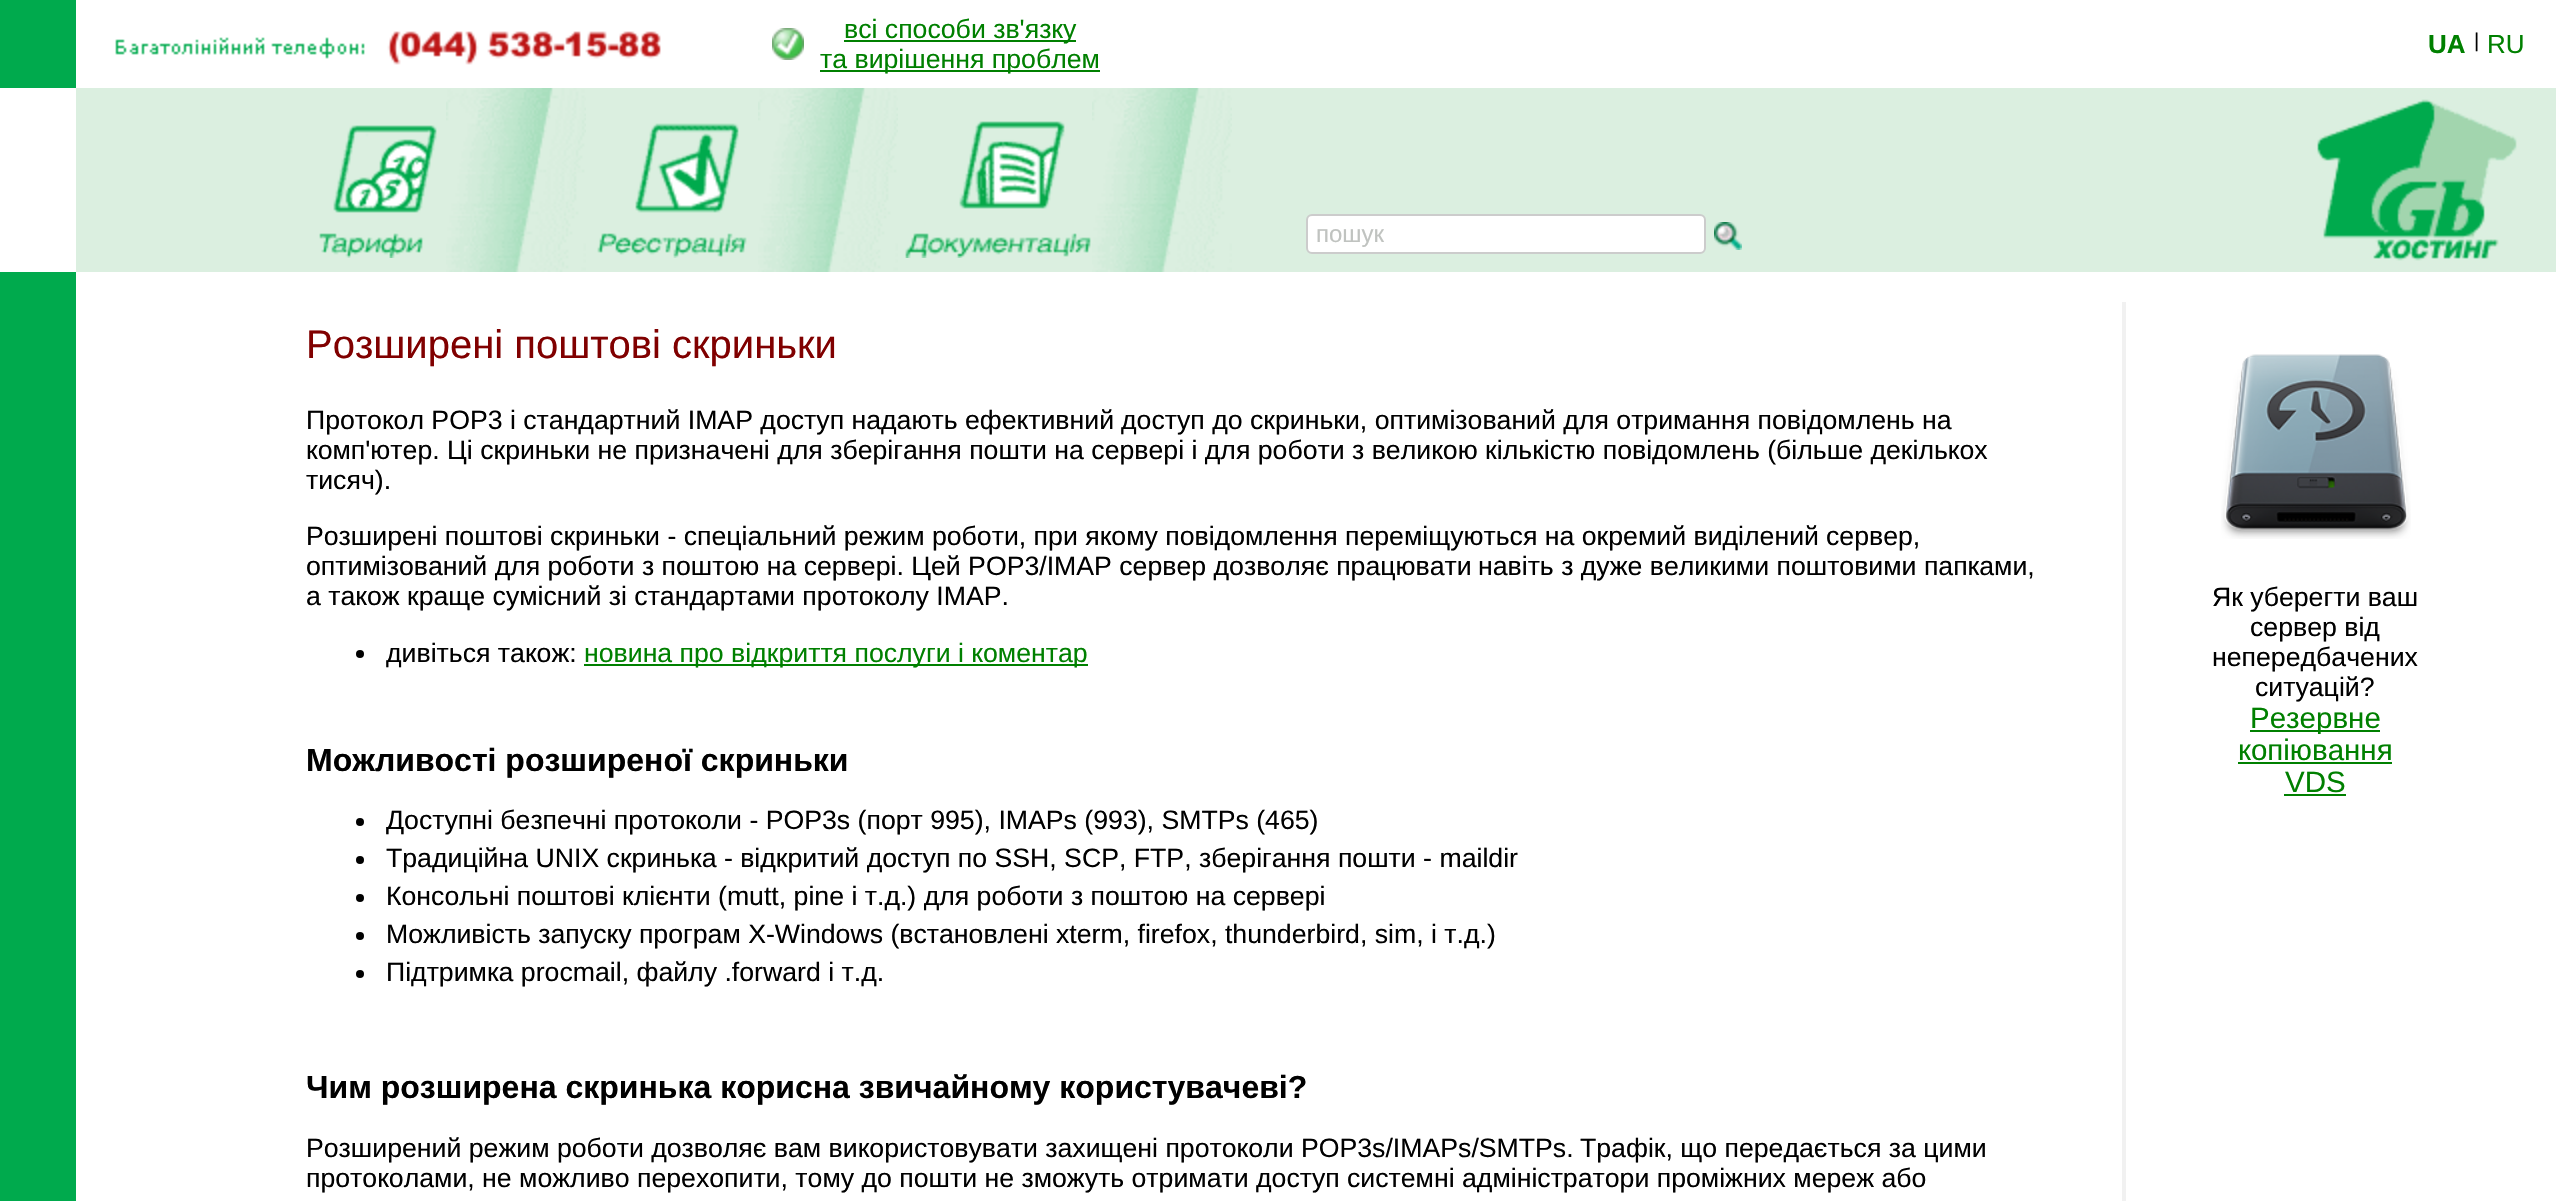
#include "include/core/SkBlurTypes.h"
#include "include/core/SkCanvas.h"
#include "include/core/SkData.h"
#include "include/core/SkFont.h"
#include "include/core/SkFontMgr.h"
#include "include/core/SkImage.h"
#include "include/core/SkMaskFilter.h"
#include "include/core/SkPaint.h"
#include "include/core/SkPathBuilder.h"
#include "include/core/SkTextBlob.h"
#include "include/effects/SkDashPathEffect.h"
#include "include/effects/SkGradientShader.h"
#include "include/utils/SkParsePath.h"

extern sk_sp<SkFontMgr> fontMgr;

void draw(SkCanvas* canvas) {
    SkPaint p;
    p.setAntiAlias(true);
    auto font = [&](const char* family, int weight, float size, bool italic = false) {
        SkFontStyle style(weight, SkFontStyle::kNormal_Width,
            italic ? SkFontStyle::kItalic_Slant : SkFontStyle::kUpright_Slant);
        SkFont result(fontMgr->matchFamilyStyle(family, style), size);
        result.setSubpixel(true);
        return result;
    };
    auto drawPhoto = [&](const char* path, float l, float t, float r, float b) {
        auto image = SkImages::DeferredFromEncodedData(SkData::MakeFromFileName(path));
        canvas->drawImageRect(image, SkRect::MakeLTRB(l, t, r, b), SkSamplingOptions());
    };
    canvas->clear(0xFFFFFFFF);
    p.setColor(0xFF00AA4D);
    canvas->drawRect(SkRect::MakeLTRB(0, 0, 76, 88), p);
    drawPhoto("media/1.png", 115, 31, 661, 65);
    drawPhoto("media/2.png", 772, 28, 804, 60);
    p.setColor(0xFF008000);
    canvas->drawRect(SkRect::MakeLTRB(844, 40, 1076, 42), p);
    auto font1 = font("Liberation Sans", 400, 26.67f);
    canvas->drawString("всі способи зв'язку", 844, 38, font1, p);
    canvas->drawRect(SkRect::MakeLTRB(820, 70, 1100, 72), p);
    canvas->drawString("та вирішення проблем", 820, 68, font1, p);
    auto font2 = font("Liberation Sans", 700, 26);
    canvas->drawString("UA", 2428, 53, font2, p);
    auto font3 = font("Liberation Sans", 400, 20);
    p.setColor(0xFF000000);
    canvas->drawString("|", 2474, 47, font3, p);
    auto font4 = font("Liberation Sans", 400, 26);
    p.setColor(0xFF008000);
    canvas->drawString("RU", 2487, 53, font4, p);
    p.setColor(0xFFDBEFE0);
    canvas->drawRect(SkRect::MakeLTRB(76, 88, 2556, 272), p);
    drawPhoto("media/3.png", 319, 125, 437, 258);
    drawPhoto("media/4.png", 446, 88, 586, 272);
    drawPhoto("media/5.png", 597, 123, 747, 258);
    drawPhoto("media/4.png", 758, 88, 898, 272);
    drawPhoto("media/6.png", 905, 121, 1091, 258);
    drawPhoto("media/4.png", 1092, 88, 1232, 272);
    p.setColor(0xFFFFFFFF);
    canvas->drawRoundRect(SkRect::MakeLTRB(1307, 215, 1705, 253), 5, 5, p);
    p.setStyle(SkPaint::kStroke_Style);
    p.setStrokeWidth(2);
    p.setColor(0xFFCCCCCC);
    canvas->drawRoundRect(SkRect::MakeLTRB(1307, 215, 1705, 253), 5, 5, p);
    auto font5 = font("Liberation Sans", 400, 24);
    p.setStyle(SkPaint::kFill_Style);
    p.setColor(0xFFC0C3C0);
    canvas->drawString("пошук", 1316, 242, font5, p);
    drawPhoto("media/7.png", 1714, 222, 1742, 250);
    drawPhoto("media/8.png", 2317, 99, 2517, 261);
    p.setColor(0xFF00AA4D);
    canvas->drawRect(SkRect::MakeLTRB(0, 272, 76, 1201), p);
    auto font6 = font("Liberation Sans", 400, 40);
    p.setColor(0xFF800000);
    canvas->drawString("Розширені поштові скриньки", 306, 358, font6, p);
    p.setColor(0xFF000000);
    {
        const struct { const char* s; float x, y; } items[] = {
            {"Протокол POP3 і стандартний IMAP доступ надають ефективний", 306, 429},
            {"доступ до скриньки, оптимізований для отримання повідомлень на", 1121, 429},
            {"комп'ютер. Ці скриньки не призначені для зберігання пошти на сервері і для роботи з великою кількістю повідомлень (більше декількох", 306, 459},
            {"тисяч).", 306, 489},
            {"Розширені поштові скриньки - спеціальний режим роботи, при якому повідомлення переміщуються на окремий виділений", 306, 545},
            {"сервер,", 1826, 545},
            {"оптимізований для роботи з поштою на сервері. Цей POP3/IMAP сервер дозволяє працювати", 306, 575},
            {"навіть з дуже великими поштовими папками,", 1478, 575},
            {"а також краще сумісний зі стандартами протоколу IMAP.", 306, 605},
        };
        for (auto [s, x, y] : items) {
            canvas->drawString(s, x, y, font1, p);
        }
    }
    canvas->drawCircle(360, 654, 4, p);
    canvas->drawString("дивіться також:", 386, 662, font1, p);
    p.setColor(0xFF008000);
    canvas->drawRect(SkRect::MakeLTRB(584, 664, 1088, 666), p);
    canvas->drawString("новина про відкриття послуги і коментар", 584, 662, font1, p);
    auto font7 = font("Liberation Sans", 700, 32);
    p.setColor(0xFF000000);
    canvas->drawString("Можливості розширеної скриньки", 306, 771, font7, p);
    canvas->drawCircle(360, 822, 4, p);
    canvas->drawString("Доступні безпечні протоколи - POP3s (порт 995), IMAPs (993), SMTPs (465)", 386, 829, font1, p);
    canvas->drawCircle(360, 860, 4, p);
    canvas->drawString("Традиційна UNIX скринька - відкритий доступ по SSH, SCP, FTP, зберігання пошти - maildir", 386, 867, font1, p);
    canvas->drawCircle(360, 898, 4, p);
    canvas->drawString("Консольні поштові клієнти (mutt, pine і т.д.) для роботи з поштою на сервері", 386, 905, font1, p);
    canvas->drawCircle(360, 936, 4, p);
    canvas->drawString("Можливість запуску програм X-Windows (встановлені xterm, firefox, thunderbird, sim, і т.д.)", 386, 943, font1, p);
    canvas->drawCircle(360, 974, 4, p);
    canvas->drawString("Підтримка procmail, файлу .forward і т.д.", 386, 981, font1, p);
    canvas->drawString("Чим розширена скринька корисна звичайному користувачеві?", 306, 1098, font7, p);
    {
        const struct { const char* s; float x, y; } items[] = {
            {"Розширений режим роботи дозволяє вам використовувати захищені протоколи POP3s/IMAPs/SMTPs.", 306, 1157},
            {"Трафік, що передається за цими", 1580, 1157},
            {"протоколами, не можливо перехопити, тому до пошти не зможуть отримати доступ", 306, 1187},
            {"системні адміністратори проміжних мереж або", 1347, 1187},
        };
        for (auto [s, x, y] : items) {
            canvas->drawString(s, x, y, font1, p);
        }
    }
    p.setColor(0xFFF1F1F1);
    canvas->drawRect(SkRect::MakeLTRB(2122, 302, 2126, 1201), p);
    drawPhoto("media/9.png", 2221, 354, 2411, 539);
    p.setColor(0xFF000000);
    {
        const struct { const char* s; float x, y; } items[] = {
            {"Як уберегти ваш", 2212, 606},
            {"сервер від", 2250, 636},
            {"непередбачених", 2212, 666},
            {"ситуацій?", 2255, 696},
        };
        for (auto [s, x, y] : items) {
            canvas->drawString(s, x, y, font1, p);
        }
    }
    p.setColor(0xFF008000);
    canvas->drawRect(SkRect::MakeLTRB(2250, 730, 2380, 732), p);
    auto font8 = font("Liberation Sans", 400, 29.5f);
    canvas->drawString("Резервне", 2250, 728, font8, p);
    canvas->drawString("копіювання", 2238, 760, font8, p);
    canvas->drawRect(SkRect::MakeLTRB(2238, 762, 2392, 764), p);
    canvas->drawString("VDS", 2285, 792, font8, p);
    canvas->drawRect(SkRect::MakeLTRB(2284, 794, 2346, 796), p);
}
